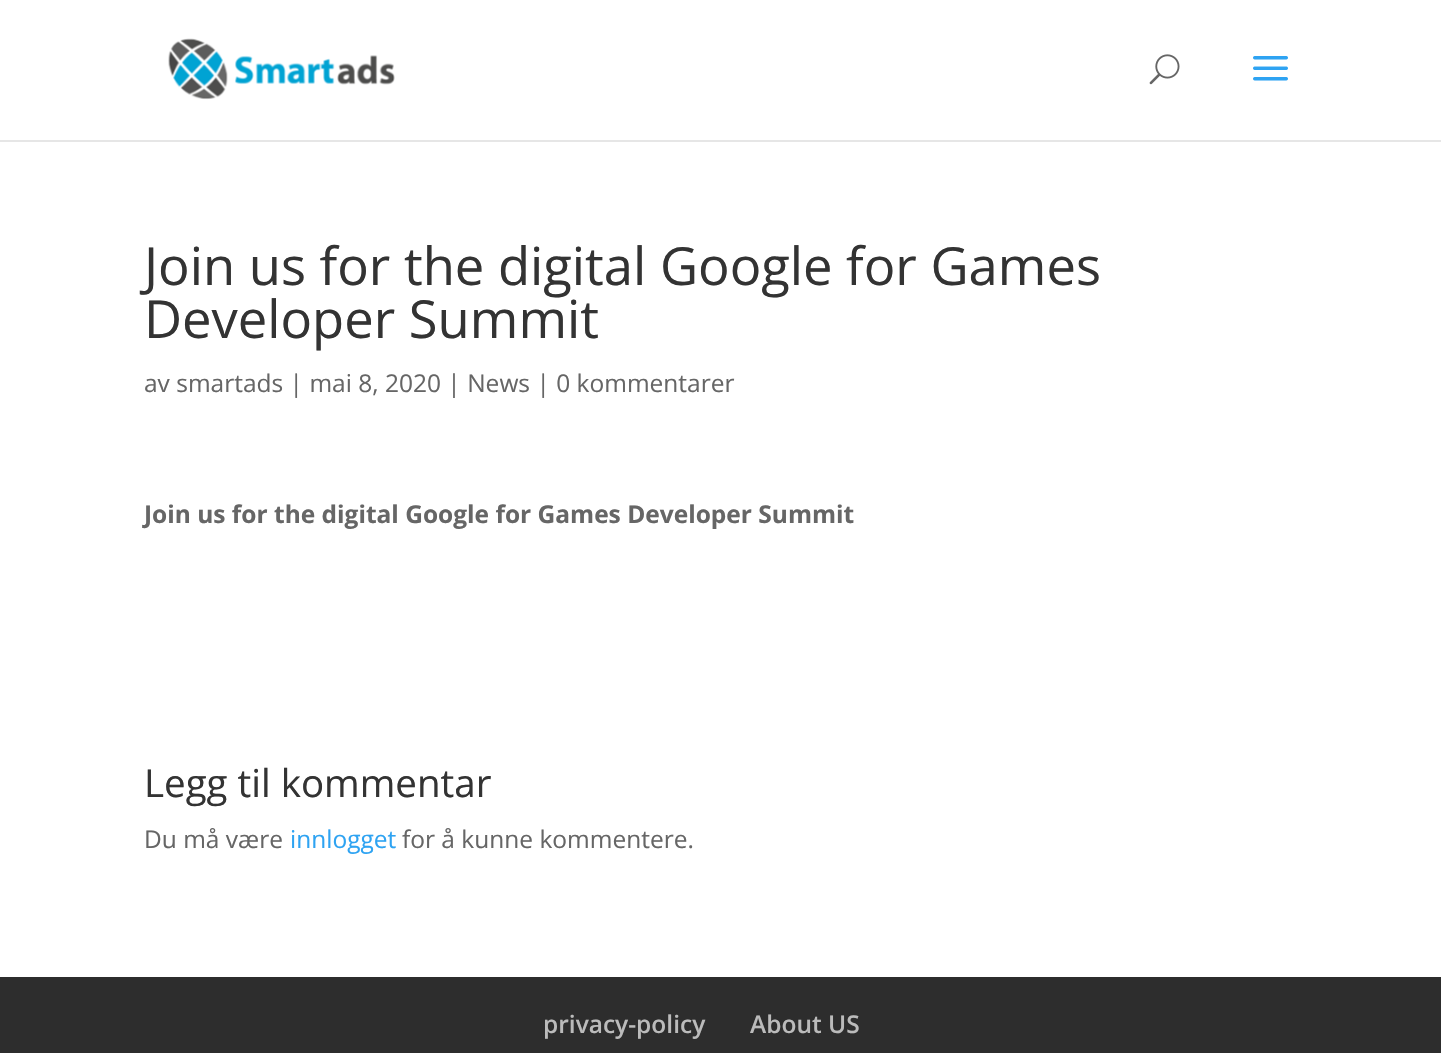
#include "include/core/SkBlurTypes.h"
#include "include/core/SkCanvas.h"
#include "include/core/SkData.h"
#include "include/core/SkFont.h"
#include "include/core/SkFontMgr.h"
#include "include/core/SkImage.h"
#include "include/core/SkMaskFilter.h"
#include "include/core/SkPaint.h"
#include "include/core/SkPathBuilder.h"
#include "include/core/SkTextBlob.h"
#include "include/effects/SkDashPathEffect.h"
#include "include/effects/SkGradientShader.h"
#include "include/utils/SkParsePath.h"

extern sk_sp<SkFontMgr> fontMgr;

void draw(SkCanvas* canvas) {
    SkPaint p;
    p.setAntiAlias(true);
    auto font = [&](const char* family, int weight, float size, bool italic = false) {
        SkFontStyle style(weight, SkFontStyle::kNormal_Width,
            italic ? SkFontStyle::kItalic_Slant : SkFontStyle::kUpright_Slant);
        SkFont result(fontMgr->matchFamilyStyle(family, style), size);
        result.setSubpixel(true);
        return result;
    };
    auto drawPhoto = [&](const char* path, float l, float t, float r, float b) {
        auto image = SkImages::DeferredFromEncodedData(SkData::MakeFromFileName(path));
        canvas->drawImageRect(image, SkRect::MakeLTRB(l, t, r, b), SkSamplingOptions());
    };
    canvas->clear(0xFFFFFFFF);
    p.setColor(0xFFE6E6E6);
    canvas->drawRect(SkRect::MakeLTRB(0, 140, 1441, 142), p);
    drawPhoto("media/1.png", 168, 38, 395, 100);
    drawPhoto("media/2.png", 1149, 54, 1180, 85);
    drawPhoto("media/3.png", 1253, 56, 1288, 81);
    auto font1 = font("Open Sans", 400, 52.5f);
    p.setColor(0xFF333333);
    canvas->drawString("Join us for the digital Google for Games", 144, 285, font1, p);
    canvas->drawString("Developer Summit", 144, 338, font1, p);
    auto font2 = font("Open Sans", 400, 24.5f);
    p.setColor(0xFF666666);
    canvas->drawString("av smartads | mai 8, 2020 | News | 0 kommentarer", 144, 392, font2, p);
    auto font3 = font("Open Sans", 700, 24.5f);
    canvas->drawString("Join us for the digital Google for Games Developer Summit", 144, 523, font3, p);
    auto font4 = font("Open Sans", 400, 38.5f);
    p.setColor(0xFF333333);
    canvas->drawString("Legg til kommentar", 144, 797, font4, p);
    p.setColor(0xFF666666);
    canvas->drawString("Du må være", 144, 848, font2, p);
    p.setColor(0xFF2EA3F2);
    canvas->drawString("innlogget", 290, 848, font2, p);
    p.setColor(0xFF666666);
    canvas->drawString("for å kunne kommentere.", 402, 848, font2, p);
    p.setColor(0xFF2D2D2D);
    canvas->drawRect(SkRect::MakeLTRB(0, 977, 1441, 1053), p);
    auto font5 = font("Open Sans", 600, 24.5f);
    p.setColor(0xFFBBBBBB);
    canvas->drawString("privacy-policy", 543, 1033, font5, p);
    canvas->drawString("About US", 750, 1033, font5, p);
}
